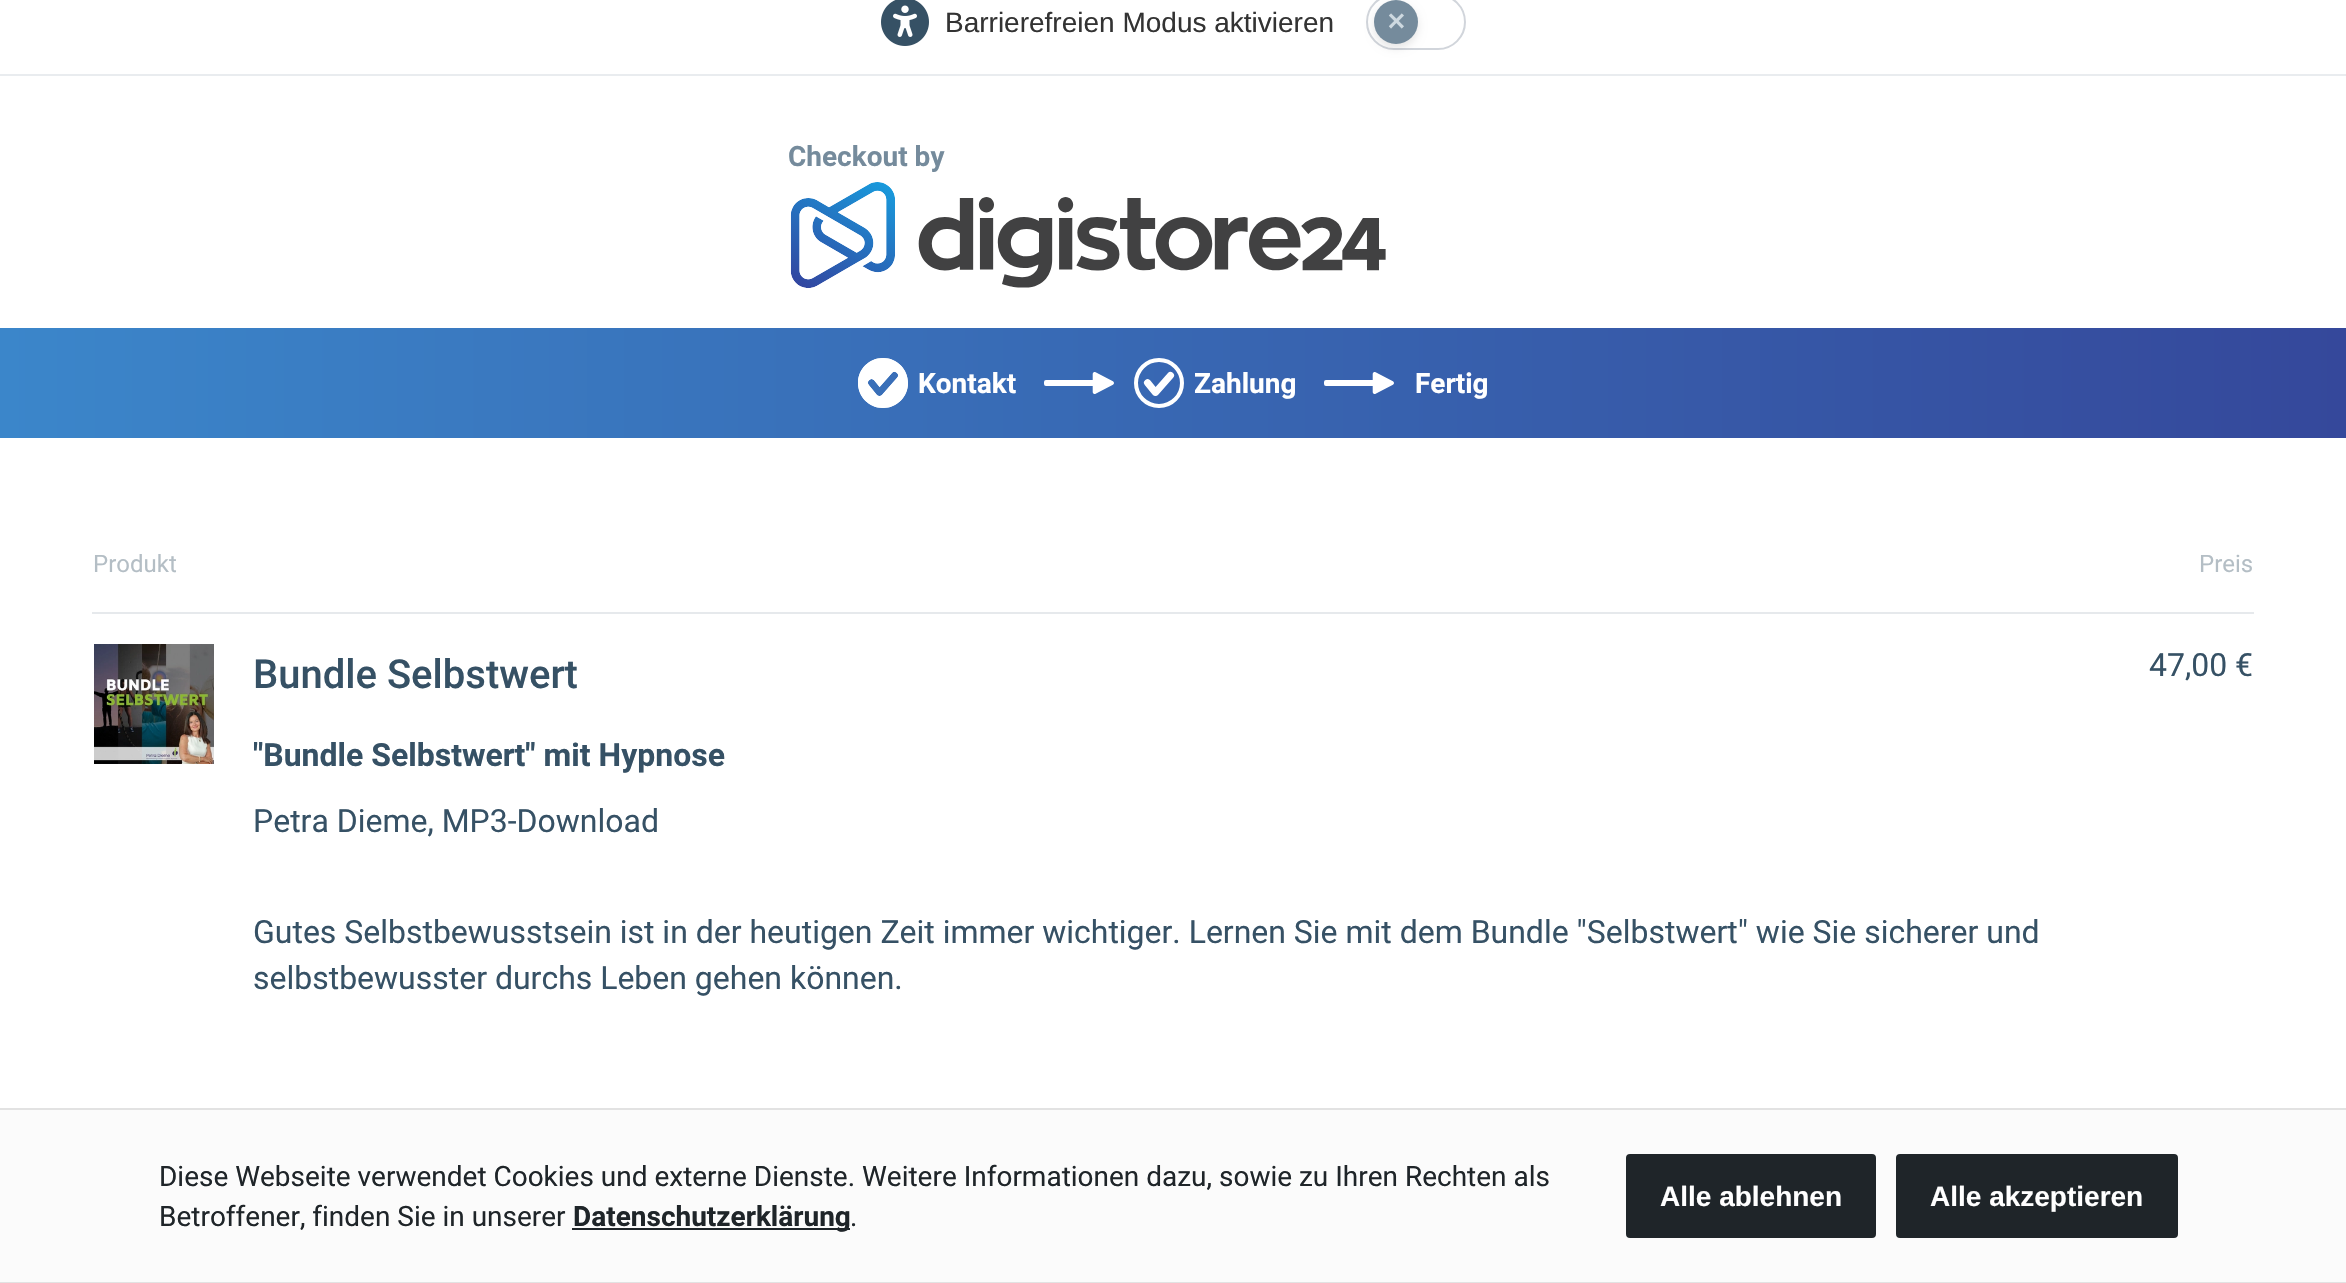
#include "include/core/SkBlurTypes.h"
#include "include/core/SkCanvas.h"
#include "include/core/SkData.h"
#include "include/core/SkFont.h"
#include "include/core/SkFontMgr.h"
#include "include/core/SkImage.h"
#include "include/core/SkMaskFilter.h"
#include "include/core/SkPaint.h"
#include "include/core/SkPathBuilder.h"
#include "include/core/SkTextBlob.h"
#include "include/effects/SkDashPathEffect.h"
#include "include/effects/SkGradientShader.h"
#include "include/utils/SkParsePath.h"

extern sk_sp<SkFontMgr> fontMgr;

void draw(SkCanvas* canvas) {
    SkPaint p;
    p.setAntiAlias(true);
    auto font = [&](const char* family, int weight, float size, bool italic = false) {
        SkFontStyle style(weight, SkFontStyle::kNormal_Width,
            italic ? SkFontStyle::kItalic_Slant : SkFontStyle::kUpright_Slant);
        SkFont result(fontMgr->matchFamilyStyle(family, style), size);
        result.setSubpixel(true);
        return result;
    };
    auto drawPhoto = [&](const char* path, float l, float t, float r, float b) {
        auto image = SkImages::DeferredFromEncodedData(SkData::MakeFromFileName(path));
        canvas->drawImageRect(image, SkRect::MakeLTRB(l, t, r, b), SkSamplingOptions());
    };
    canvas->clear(0xFFFFFFFF);
    p.setColor(0xFFE9ECEF);
    canvas->drawRect(SkRect::MakeLTRB(0, 74, 2346, 76), p);
    drawPhoto("media/1.png", 881, 0, 929, 46);
    auto font1 = font("Liberation Sans", 400, 28);
    p.setColor(0xFF333333);
    canvas->drawString("Barrierefreien Modus aktivieren", 945, 32, font1, p);
    p.setStyle(SkPaint::kStroke_Style);
    p.setStrokeWidth(2);
    p.setColor(0xFFD1D5DB);
    canvas->drawRoundRect(SkRect::MakeLTRB(1367, -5, 1465, 49), 27, 27, p);
    p.setStyle(SkPaint::kFill_Style);
    p.setColor(0x1A000000);
    p.setMaskFilter(SkMaskFilter::MakeBlur(kNormal_SkBlurStyle, 4));
    canvas->drawRoundRect(SkRect::MakeLTRB(1374, 4, 1418, 48), 22, 22, p);
    p.setMaskFilter(nullptr);
    p.setColor(0xFF758B9C);
    canvas->drawCircle(1396, 22, 22, p);
    auto font2 = font("DejaVu Sans", 700, 24);
    p.setColor(0xFFCED9E0);
    canvas->drawString("✕", 1386, 30, font2, p);
    auto font3 = font("Roboto", 700, 28);
    p.setColor(0xFF758B9C);
    canvas->drawString("Checkout by", 788, 166, font3, p);
    drawPhoto("media/2.png", 790, 182, 1386, 288);
    {
        const SkColor colors[] = {0xFF3B86CA, 0xFF35489B};
        const float stops[] = {0, 1};
        const SkPoint ends[] = {{0, 383}, {2346, 383}};
        p.setShader(SkGradientShader::MakeLinear(ends, colors, stops, 2, SkTileMode::kClamp));
        p.setAlpha(255);
    }
    canvas->drawRect(SkRect::MakeLTRB(0, 328, 2346, 438), p);
    drawPhoto("media/3.png", 858, 358, 908, 408);
    p.setShader(nullptr);
    p.setColor(0xFFFFFFFF);
    canvas->drawString("Kontakt", 918, 393, font3, p);
    drawPhoto("media/4.png", 1044, 372, 1114, 394);
    drawPhoto("media/5.png", 1134, 358, 1184, 408);
    canvas->drawString("Zahlung", 1194, 393, font3, p);
    drawPhoto("media/6.png", 1324, 372, 1394, 394);
    canvas->drawString("Fertig", 1415, 393, font3, p);
    auto font4 = font("Roboto", 400, 24);
    p.setColor(0xFFB4BEC5);
    canvas->drawString("Produkt", 93, 572, font4, p);
    p.setColor(0xFFE6E9EC);
    canvas->drawRect(SkRect::MakeLTRB(92, 612, 2254, 614), p);
    p.setColor(0xFFB4BEC5);
    canvas->drawString("Preis", 2199, 572, font4, p);
    drawPhoto("media/7.png", 94, 644, 214, 764);
    auto font5 = font("Roboto", 500, 40);
    p.setColor(0xFF365165);
    canvas->drawString("Bundle Selbstwert", 253, 688, font5, p);
    auto font6 = font("Roboto", 700, 32);
    canvas->drawString("\"Bundle Selbstwert\" mit Hypnose", 253, 766, font6, p);
    auto font7 = font("Roboto", 400, 32);
    {
        const struct { const char* s; float x, y; } items[] = {
            {"Petra Dieme, MP3-Download", 253, 832},
            {"Gutes Selbstbewusstsein ist in der heutigen Zeit immer wichtiger. Lernen Sie mit dem Bundle \"Selbstwert\" wie Sie sicherer und", 253, 943},
            {"selbstbewusster durchs Leben gehen können.", 253, 989},
            {"47,00 €", 2149, 676},
        };
        for (auto [s, x, y] : items) {
            canvas->drawString(s, x, y, font7, p);
        }
    }
    {
        const struct { float l, t, r, b; SkColor color; } items[] = {
            {0, 1110, 2346, 1282, 0xFFFBFBFB},
            {0, 1108, 2346, 1110, 0xFFE2E2E2},
            {0, 1282, 2346, 1283, 0xFFE2E2E2},
        };
        for (auto [l, t, r, b, color] : items) {
            p.setColor(color);
            canvas->drawRect(SkRect::MakeLTRB(l, t, r, b), p);
        }
    }
    auto font8 = font("Roboto", 400, 28);
    p.setColor(0xFF1F2529);
    canvas->drawString("Diese Webseite verwendet Cookies und externe Dienste. Weitere Informationen dazu, sowie zu Ihren Rechten als", 159, 1186, font8, p);
    canvas->drawString("Betroffener, finden Sie in unserer", 159, 1226, font8, p);
    canvas->drawRect(SkRect::MakeLTRB(572, 1228, 850, 1230), p);
    canvas->drawString("Datenschutzerklärung", 573, 1226, font3, p);
    canvas->drawString(".", 850, 1226, font8, p);
    canvas->drawRoundRect(SkRect::MakeLTRB(1627, 1155, 1875, 1237), 3, 3, p);
    p.setStyle(SkPaint::kStroke_Style);
    canvas->drawRoundRect(SkRect::MakeLTRB(1627, 1155, 1875, 1237), 3, 3, p);
    auto font9 = font("Liberation Sans", 700, 28);
    p.setStyle(SkPaint::kFill_Style);
    p.setColor(0xFFFFFFFF);
    canvas->drawString("Alle ablehnen", 1660, 1206, font9, p);
    p.setColor(0xFF1F2529);
    canvas->drawRoundRect(SkRect::MakeLTRB(1897, 1155, 2177, 1237), 3, 3, p);
    p.setStyle(SkPaint::kStroke_Style);
    canvas->drawRoundRect(SkRect::MakeLTRB(1897, 1155, 2177, 1237), 3, 3, p);
    p.setStyle(SkPaint::kFill_Style);
    p.setColor(0xFFFFFFFF);
    canvas->drawString("Alle akzeptieren", 1930, 1206, font9, p);
}
